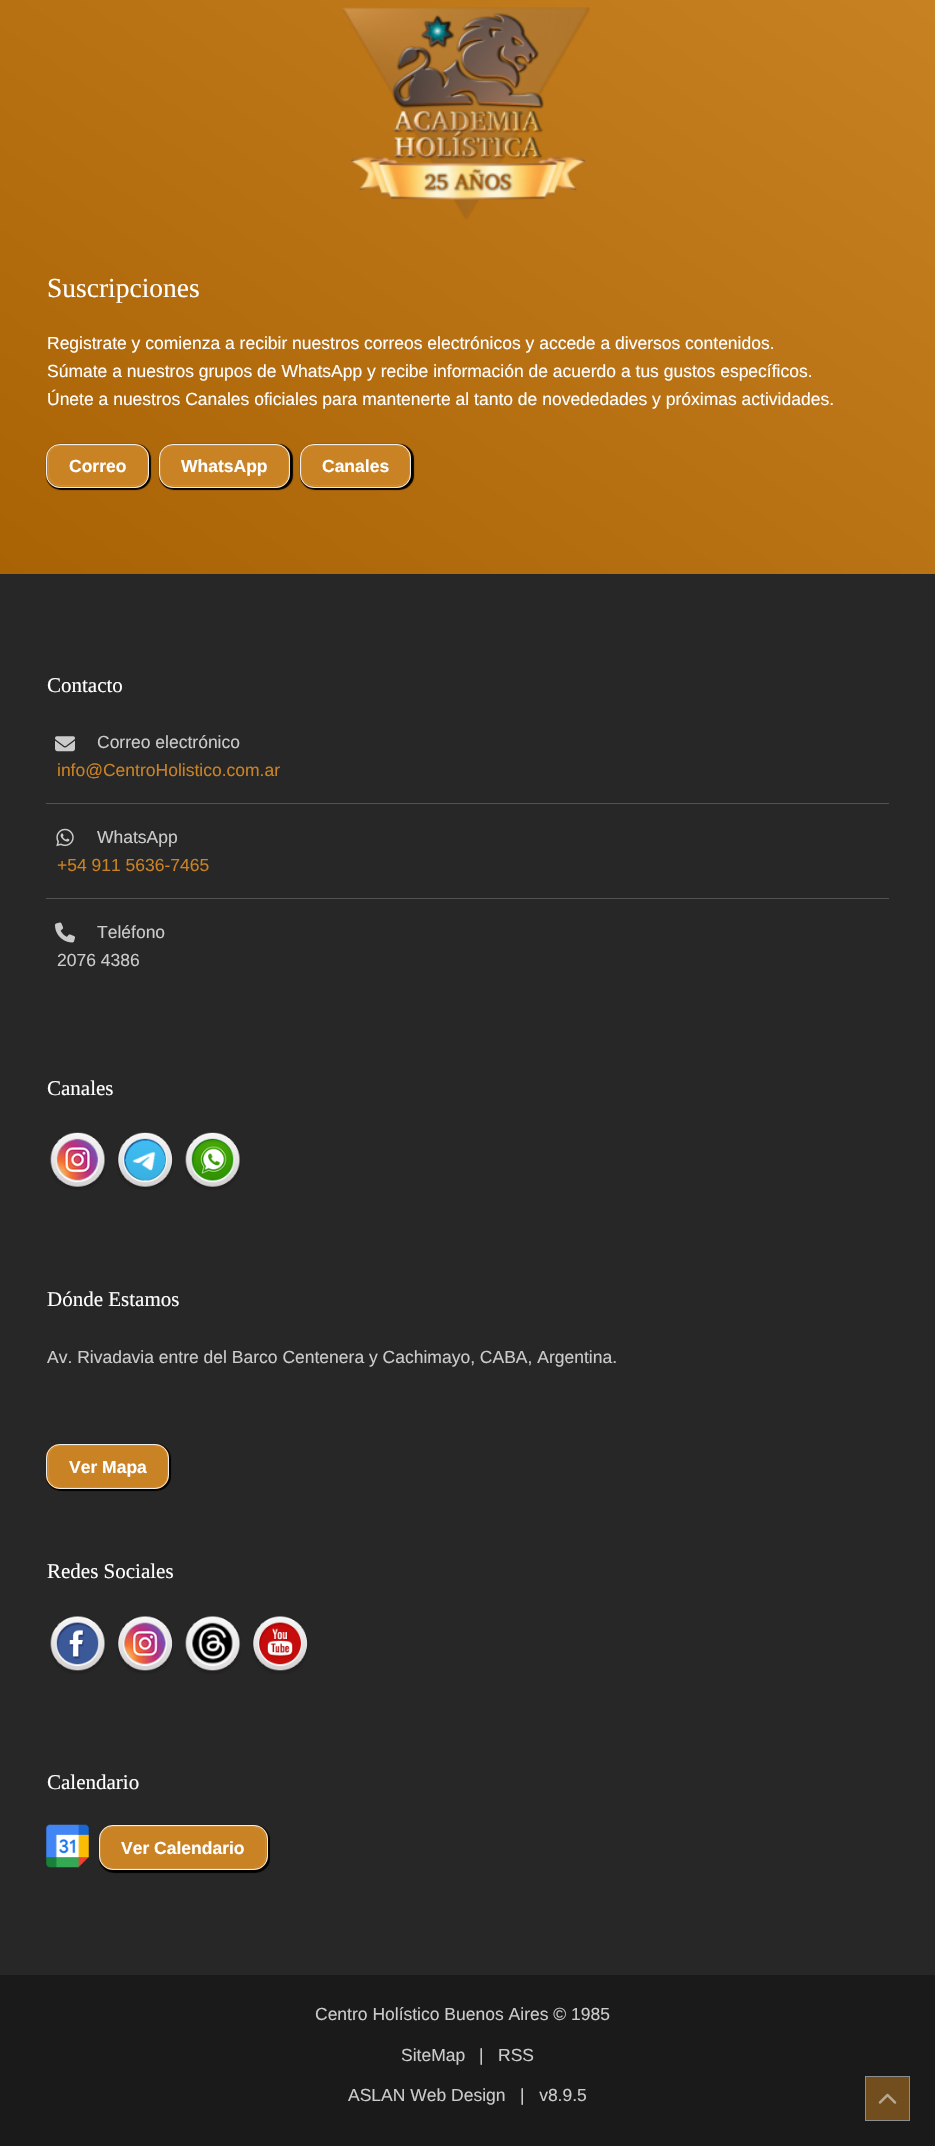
#include "include/core/SkBlurTypes.h"
#include "include/core/SkCanvas.h"
#include "include/core/SkData.h"
#include "include/core/SkFont.h"
#include "include/core/SkFontMgr.h"
#include "include/core/SkImage.h"
#include "include/core/SkMaskFilter.h"
#include "include/core/SkPaint.h"
#include "include/core/SkPathBuilder.h"
#include "include/core/SkTextBlob.h"
#include "include/effects/SkDashPathEffect.h"
#include "include/effects/SkGradientShader.h"
#include "include/utils/SkParsePath.h"

extern sk_sp<SkFontMgr> fontMgr;

void draw(SkCanvas* canvas) {
    SkPaint p;
    p.setAntiAlias(true);
    auto font = [&](const char* family, int weight, float size, bool italic = false) {
        SkFontStyle style(weight, SkFontStyle::kNormal_Width,
            italic ? SkFontStyle::kItalic_Slant : SkFontStyle::kUpright_Slant);
        SkFont result(fontMgr->matchFamilyStyle(family, style), size);
        result.setSubpixel(true);
        return result;
    };
    auto drawPhoto = [&](const char* path, float l, float t, float r, float b) {
        auto image = SkImages::DeferredFromEncodedData(SkData::MakeFromFileName(path));
        canvas->drawImageRect(image, SkRect::MakeLTRB(l, t, r, b), SkSamplingOptions());
    };
    canvas->clear(0xFF1A1A1A);
    {
        const SkColor colors[] = {0xFFA96204, 0xFFC98224};
        const float stops[] = {0, 1};
        const SkPoint ends[] = {{162, 687}, {773, -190}};
        p.setShader(SkGradientShader::MakeLinear(ends, colors, stops, 2, SkTileMode::kClamp));
        p.setAlpha(255);
    }
    canvas->drawRect(SkRect::MakeLTRB(0, 0, 935, 574), p);
    drawPhoto("media/1.png", 342, 7, 590, 220);
    auto font1 = font("Liberation Serif", 400, 27.5f);
    p.setShader(nullptr);
    p.setColor(0xFFFFFFFF);
    canvas->drawString("Suscripciones", 47, 297, font1, p);
    auto font2 = font("Liberation Sans", 400, 17.5f);
    {
        const struct { const char* s; float x, y; } items[] = {
            {"Registrate y comienza a recibir nuestros correos electrónicos y accede a diversos contenidos.", 47, 349},
            {"Súmate a nuestros grupos de WhatsApp y recibe información de acuerdo a tus gustos específicos.", 47, 377},
            {"Únete a nuestros Canales oficiales para mantenerte al tanto de novededades y próximas actividades.", 47, 405},
        };
        for (auto [s, x, y] : items) {
            canvas->drawString(s, x, y, font2, p);
        }
    }
    p.setColor(0xFF000000);
    p.setMaskFilter(SkMaskFilter::MakeBlur(kNormal_SkBlurStyle, 0.5f));
    canvas->drawRoundRect(SkRect::MakeLTRB(46, 444, 151, 490), 15, 15, p);
    p.setMaskFilter(nullptr);
    p.setColor(0xFFC98224);
    canvas->drawRoundRect(SkRect::MakeLTRB(46, 444, 149, 488), 14, 14, p);
    p.setStyle(SkPaint::kStroke_Style);
    p.setStrokeWidth(0.9f);
    p.setColor(0xFFCF913E);
    canvas->drawRoundRect(SkRect::MakeLTRB(48.45f, 445.45f, 147.55f, 485.55f), 12.55f, 12.55f, p);
    p.setStrokeWidth(1);
    p.setColor(0xFFEEEEEE);
    canvas->drawRoundRect(SkRect::MakeLTRB(46.5f, 444.5f, 148.5f, 487.5f), 13.5f, 13.5f, p);
    auto font3 = font("Liberation Sans", 700, 17.5f);
    p.setStyle(SkPaint::kFill_Style);
    p.setColor(0xFFFFFFFF);
    canvas->drawString("Correo", 69, 472, font3, p);
    p.setColor(0xFF000000);
    p.setMaskFilter(SkMaskFilter::MakeBlur(kNormal_SkBlurStyle, 0.5f));
    canvas->drawRoundRect(SkRect::MakeLTRB(159, 444, 293, 490), 15, 15, p);
    p.setMaskFilter(nullptr);
    p.setColor(0xFFC98224);
    canvas->drawRoundRect(SkRect::MakeLTRB(159, 444, 290, 488), 14, 14, p);
    p.setStyle(SkPaint::kStroke_Style);
    p.setStrokeWidth(0.9f);
    p.setColor(0xFFCF913E);
    canvas->drawRoundRect(SkRect::MakeLTRB(160.45f, 445.45f, 288.55f, 485.55f), 12.55f, 12.55f, p);
    p.setStrokeWidth(1);
    p.setColor(0xFFEEEEEE);
    canvas->drawRoundRect(SkRect::MakeLTRB(159.5f, 444.5f, 289.5f, 487.5f), 13.5f, 13.5f, p);
    p.setStyle(SkPaint::kFill_Style);
    p.setColor(0xFFFFFFFF);
    canvas->drawString("WhatsApp", 181, 472, font3, p);
    p.setColor(0xFF000000);
    p.setMaskFilter(SkMaskFilter::MakeBlur(kNormal_SkBlurStyle, 0.5f));
    canvas->drawRoundRect(SkRect::MakeLTRB(300, 444, 414, 490), 15, 15, p);
    p.setMaskFilter(nullptr);
    p.setColor(0xFFC98224);
    canvas->drawRoundRect(SkRect::MakeLTRB(300, 444, 411, 488), 14, 14, p);
    p.setStyle(SkPaint::kStroke_Style);
    p.setStrokeWidth(0.9f);
    p.setColor(0xFFCF913E);
    canvas->drawRoundRect(SkRect::MakeLTRB(301.45f, 445.45f, 409.55f, 485.55f), 12.55f, 12.55f, p);
    p.setStrokeWidth(1);
    p.setColor(0xFFEEEEEE);
    canvas->drawRoundRect(SkRect::MakeLTRB(300.5f, 444.5f, 410.5f, 487.5f), 13.5f, 13.5f, p);
    p.setStyle(SkPaint::kFill_Style);
    p.setColor(0xFFFFFFFF);
    canvas->drawString("Canales", 322, 472, font3, p);
    p.setColor(0xFF272727);
    canvas->drawRect(SkRect::MakeLTRB(0, 574, 935, 1975), p);
    auto font4 = font("Liberation Serif", 400, 21);
    p.setColor(0xFFFFFFFF);
    canvas->drawString("Contacto", 47, 692, font4, p);
    p.setColor(0xFF525252);
    canvas->drawRect(SkRect::MakeLTRB(46, 803, 889, 804), p);
    drawPhoto("media/2.png", 55, 736, 75, 752);
    p.setColor(0xFFCBCBCB);
    canvas->drawString("Correo electrónico", 97, 748, font2, p);
    p.setColor(0xFFC98224);
    canvas->drawString("info@CentroHolistico.com.ar", 57, 776, font2, p);
    p.setColor(0xFF525252);
    canvas->drawRect(SkRect::MakeLTRB(46, 898, 889, 899), p);
    drawPhoto("media/3.png", 56, 828, 74, 847);
    p.setColor(0xFFCBCBCB);
    canvas->drawString("WhatsApp", 97, 843, font2, p);
    p.setColor(0xFFC98224);
    canvas->drawString("+54 911 5636-7465", 57, 871, font2, p);
    drawPhoto("media/4.png", 55, 922, 75, 943);
    p.setColor(0xFFCBCBCB);
    canvas->drawString("Teléfono", 97, 938, font2, p);
    canvas->drawString("2076 4386", 57, 966, font2, p);
    p.setColor(0xFFFFFFFF);
    canvas->drawString("Canales", 47, 1095, font4, p);
    drawPhoto("media/5.png", 50, 1132, 106, 1190);
    drawPhoto("media/6.png", 117, 1132, 173, 1190);
    drawPhoto("media/7.png", 185, 1132, 241, 1190);
    canvas->drawString("Dónde Estamos", 47, 1306, font4, p);
    p.setColor(0xFFCBCBCB);
    canvas->drawString("Av. Rivadavia entre del Barco Centenera y Cachimayo, CABA, Argentina.", 47, 1363, font2, p);
    p.setColor(0xFF000000);
    p.setMaskFilter(SkMaskFilter::MakeBlur(kNormal_SkBlurStyle, 0.5f));
    canvas->drawRoundRect(SkRect::MakeLTRB(46, 1444, 171, 1491), 15, 15, p);
    p.setMaskFilter(nullptr);
    p.setColor(0xFFC98224);
    canvas->drawRoundRect(SkRect::MakeLTRB(46, 1444, 169, 1489), 14, 14, p);
    p.setStyle(SkPaint::kStroke_Style);
    p.setStrokeWidth(0.9f);
    p.setColor(0xFFCF913E);
    canvas->drawRoundRect(SkRect::MakeLTRB(48.45f, 1445.45f, 167.55f, 1487.55f), 12.55f, 12.55f, p);
    p.setStrokeWidth(1);
    p.setColor(0xFFEEEEEE);
    canvas->drawRoundRect(SkRect::MakeLTRB(46.5f, 1444.5f, 168.5f, 1488.5f), 13.5f, 13.5f, p);
    p.setStyle(SkPaint::kFill_Style);
    p.setColor(0xFFFFFFFF);
    canvas->drawString("Ver Mapa", 69, 1473, font3, p);
    canvas->drawString("Redes Sociales", 47, 1578, font4, p);
    drawPhoto("media/8.png", 50, 1616, 106, 1674);
    drawPhoto("media/9.png", 117, 1616, 173, 1674);
    drawPhoto("media/10.png", 185, 1616, 241, 1674);
    drawPhoto("media/11.png", 252, 1616, 308, 1674);
    canvas->drawString("Calendario", 47, 1789, font4, p);
    drawPhoto("media/12.png", 46, 1824, 89, 1868);
    p.setColor(0xFF000000);
    p.setMaskFilter(SkMaskFilter::MakeBlur(kNormal_SkBlurStyle, 0.5f));
    canvas->drawRoundRect(SkRect::MakeLTRB(99, 1825, 270, 1873), 15, 15, p);
    p.setMaskFilter(nullptr);
    p.setColor(0xFFC98224);
    canvas->drawRoundRect(SkRect::MakeLTRB(99, 1825, 268, 1870), 14, 14, p);
    p.setStyle(SkPaint::kStroke_Style);
    p.setStrokeWidth(0.9f);
    p.setColor(0xFFCF913E);
    canvas->drawRoundRect(SkRect::MakeLTRB(100.45f, 1826.45f, 265.55f, 1868.55f), 12.55f, 12.55f, p);
    p.setStrokeWidth(1);
    p.setColor(0xFFEEEEEE);
    canvas->drawRoundRect(SkRect::MakeLTRB(99.5f, 1825.5f, 267.5f, 1869.5f), 13.5f, 13.5f, p);
    p.setStyle(SkPaint::kFill_Style);
    p.setColor(0xFFFFFFFF);
    canvas->drawString("Ver Calendario", 121, 1854, font3, p);
    p.setColor(0xFFCBCBCB);
    {
        const struct { const char* s; float x, y; } items[] = {
            {"Centro Holístico Buenos Aires © 1985", 315, 2020},
            {"SiteMap", 401, 2061},
            {"|", 479, 2061},
            {"RSS", 498, 2061},
            {"ASLAN Web Design", 348, 2101},
            {"|   v8.9.5", 520, 2101},
        };
        for (auto [s, x, y] : items) {
            canvas->drawString(s, x, y, font2, p);
        }
    }
    p.setColor(0xFF724E1F);
    canvas->drawRect(SkRect::MakeLTRB(865.5f, 2076.5f, 909.5f, 2120.5f), p);
    p.setStyle(SkPaint::kStroke_Style);
    p.setColor(0xFF8D8D8D);
    canvas->drawRect(SkRect::MakeLTRB(865.5f, 2076.5f, 909.5f, 2120.5f), p);
    drawPhoto("media/13.png", 878, 2093, 897, 2104);
}
